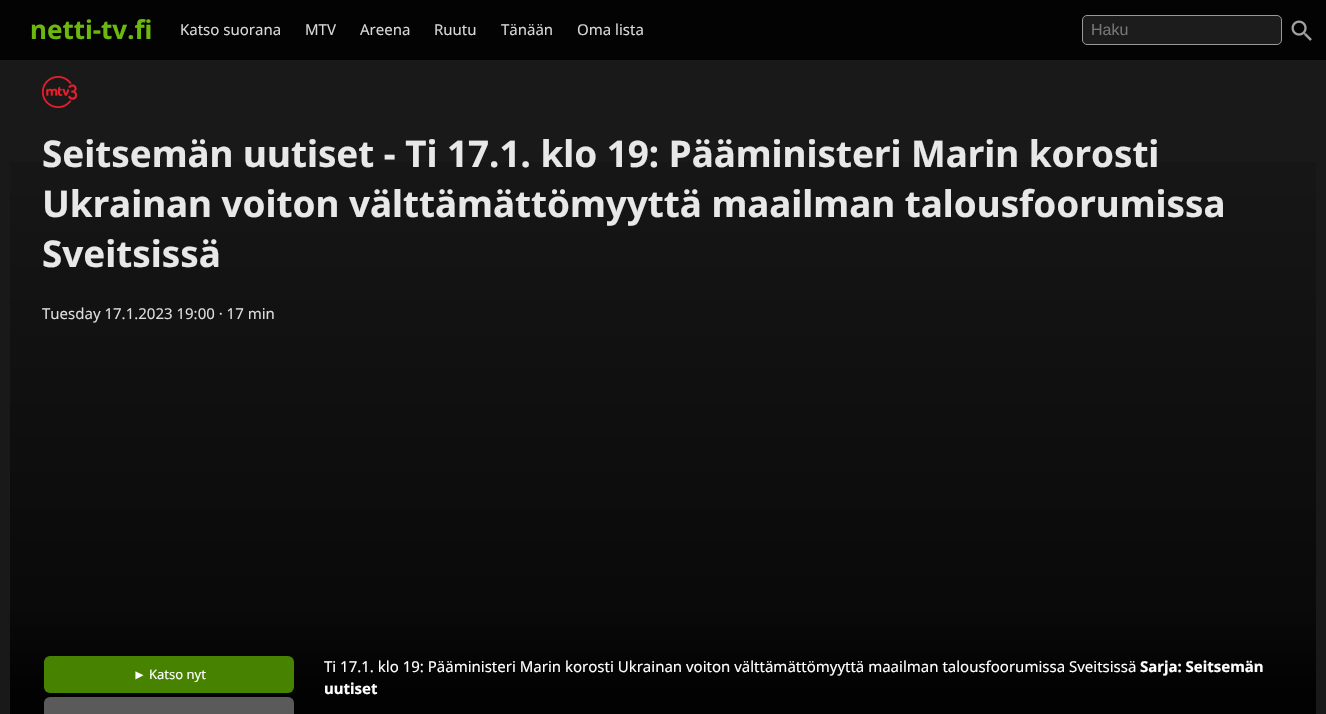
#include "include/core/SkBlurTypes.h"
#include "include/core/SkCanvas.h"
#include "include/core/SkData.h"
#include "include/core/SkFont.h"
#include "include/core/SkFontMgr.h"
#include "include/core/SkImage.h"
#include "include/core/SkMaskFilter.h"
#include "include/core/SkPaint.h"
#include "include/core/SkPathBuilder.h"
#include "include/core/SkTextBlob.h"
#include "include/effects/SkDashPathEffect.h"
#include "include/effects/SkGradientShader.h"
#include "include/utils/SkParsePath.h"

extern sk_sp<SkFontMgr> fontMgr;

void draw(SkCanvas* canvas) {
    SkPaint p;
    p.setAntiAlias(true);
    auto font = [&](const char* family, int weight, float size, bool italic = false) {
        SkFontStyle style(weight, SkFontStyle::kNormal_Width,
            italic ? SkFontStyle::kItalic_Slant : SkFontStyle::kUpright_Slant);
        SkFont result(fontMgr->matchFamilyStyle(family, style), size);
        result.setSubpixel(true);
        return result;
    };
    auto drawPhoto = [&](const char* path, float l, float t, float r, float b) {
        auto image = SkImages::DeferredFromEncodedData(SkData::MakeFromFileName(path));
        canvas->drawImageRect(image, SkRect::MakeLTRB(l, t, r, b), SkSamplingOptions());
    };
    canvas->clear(0xFF191919);
    p.setColor(0xFF030303);
    canvas->drawRect(SkRect::MakeLTRB(0, 0, 1326, 60), p);
    auto font1 = font("Noto Sans", 700, 26);
    p.setColor(0xFF6BB80F);
    canvas->drawString("netti-tv.fi", 30, 39, font1, p);
    auto font2 = font("Noto Sans", 400, 15);
    p.setColor(0xFFD7D7D7);
    {
        const struct { const char* s; float x, y; } items[] = {
            {"Katso suorana", 180, 35},
            {"MTV", 305, 35},
            {"Areena", 360, 35},
            {"Ruutu", 434, 35},
            {"Tänään", 501, 35},
            {"Oma lista", 577, 35},
        };
        for (auto [s, x, y] : items) {
            canvas->drawString(s, x, y, font2, p);
        }
    }
    p.setColor(0xFF1C1C1C);
    canvas->drawRoundRect(SkRect::MakeLTRB(1082.5f, 15.5f, 1281.5f, 44.5f), 4.5f, 4.5f, p);
    p.setStyle(SkPaint::kStroke_Style);
    p.setStrokeWidth(1);
    p.setColor(0xFF999999);
    canvas->drawRoundRect(SkRect::MakeLTRB(1082.5f, 15.5f, 1281.5f, 44.5f), 4.5f, 4.5f, p);
    auto font3 = font("Liberation Sans", 400, 16);
    p.setStyle(SkPaint::kFill_Style);
    p.setColor(0xFF757575);
    canvas->drawString("Haku", 1091, 35, font3, p);
    drawPhoto("media/1.png", 1291, 20, 1312, 41);
    {
        const SkColor colors[] = {0xFF070707, 0xFF191919};
        const float stops[] = {0.1f, 1};
        const SkPoint ends[] = {{663, 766}, {663, 76}};
        p.setShader(SkGradientShader::MakeLinear(ends, colors, stops, 2, SkTileMode::kClamp));
        p.setAlpha(255);
    }
    canvas->drawRect(SkRect::MakeLTRB(10, 162, 1316, 623), p);
    drawPhoto("media/2.png", 42, 76, 77, 108);
    auto font4 = font("Noto Sans", 700, 36.8f);
    p.setShader(nullptr);
    p.setColor(0xFFE8E8E8);
    {
        const struct { const char* s; float x, y; } items[] = {
            {"Seitsemän uutiset - Ti 17.1. klo 19: Pääministeri Marin korosti", 42, 167},
            {"Ukrainan voiton välttämättömyyttä maailman talousfoorumissa", 42, 217},
            {"Sveitsissä", 42, 267},
        };
        for (auto [s, x, y] : items) {
            canvas->drawString(s, x, y, font4, p);
        }
    }
    p.setColor(0xFFDDDDDD);
    canvas->drawString("Tuesday 17.1.2023 19:00 · 17 min", 42, 319, font2, p);
    {
        const SkColor colors[] = {0xFF020202, 0xFF080808};
        const float stops[] = {0.5f, 1};
        const SkPoint ends[] = {{663, 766}, {663, 623}};
        p.setShader(SkGradientShader::MakeLinear(ends, colors, stops, 2, SkTileMode::kClamp));
        p.setAlpha(255);
    }
    canvas->drawRect(SkRect::MakeLTRB(10, 623, 1316, 714), p);
    p.setShader(nullptr);
    p.setColor(0xFF478300);
    canvas->drawRoundRect(SkRect::MakeLTRB(44, 656, 294, 693), 6, 6, p);
    auto font5 = font("Liberation Sans", 400, 13);
    p.setColor(0xFFFFFFFF);
    canvas->drawString("►", 133, 679, font5, p);
    auto font6 = font("Noto Sans", 400, 13);
    canvas->drawString("Katso nyt", 149, 679, font6, p);
    p.setColor(0xFF5A5A5A);
    canvas->drawRoundRect(SkRect::MakeLTRB(44, 697, 294, 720), 6, 6, p);
    p.setColor(0xFFFFFFFF);
    canvas->drawString("Ti 17.1. klo 19: Pääministeri Marin korosti Ukrainan voiton välttämättömyyttä maailman talousfoorumissa Sveitsissä", 324, 672, font2, p);
    auto font7 = font("Noto Sans", 700, 15);
    canvas->drawString("Sarja: Seitsemän", 1140, 672, font7, p);
    canvas->drawString("uutiset", 324, 694, font7, p);
}
